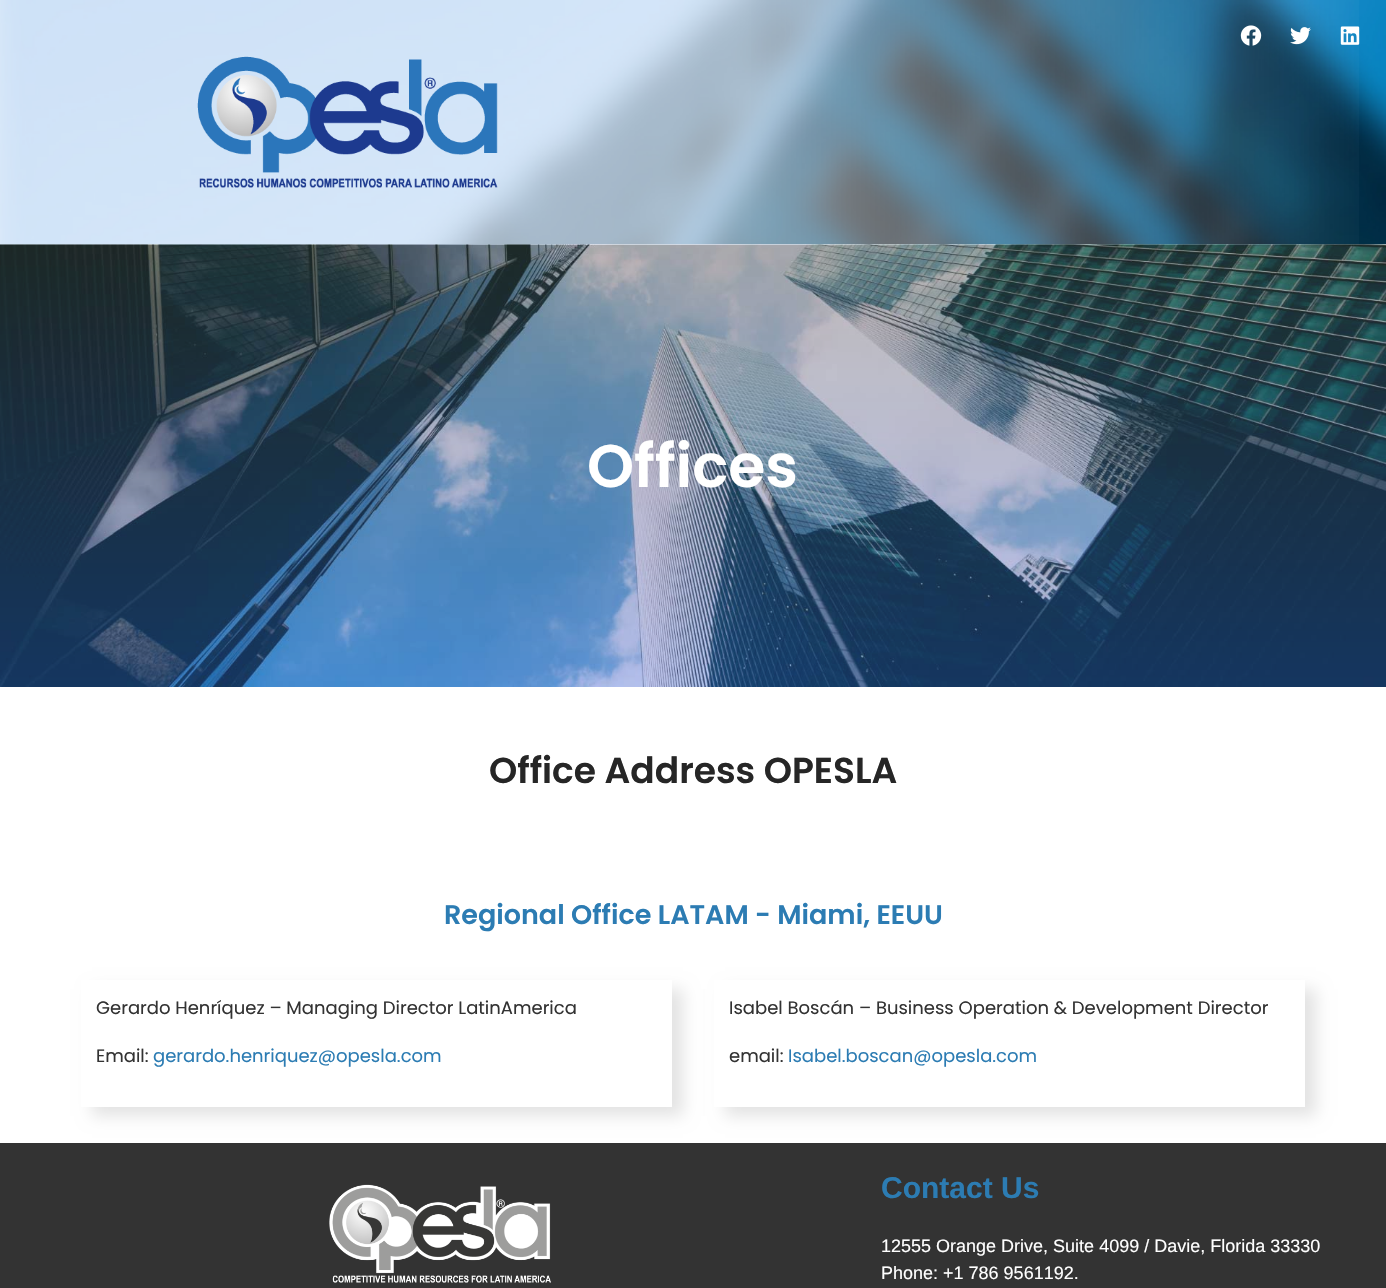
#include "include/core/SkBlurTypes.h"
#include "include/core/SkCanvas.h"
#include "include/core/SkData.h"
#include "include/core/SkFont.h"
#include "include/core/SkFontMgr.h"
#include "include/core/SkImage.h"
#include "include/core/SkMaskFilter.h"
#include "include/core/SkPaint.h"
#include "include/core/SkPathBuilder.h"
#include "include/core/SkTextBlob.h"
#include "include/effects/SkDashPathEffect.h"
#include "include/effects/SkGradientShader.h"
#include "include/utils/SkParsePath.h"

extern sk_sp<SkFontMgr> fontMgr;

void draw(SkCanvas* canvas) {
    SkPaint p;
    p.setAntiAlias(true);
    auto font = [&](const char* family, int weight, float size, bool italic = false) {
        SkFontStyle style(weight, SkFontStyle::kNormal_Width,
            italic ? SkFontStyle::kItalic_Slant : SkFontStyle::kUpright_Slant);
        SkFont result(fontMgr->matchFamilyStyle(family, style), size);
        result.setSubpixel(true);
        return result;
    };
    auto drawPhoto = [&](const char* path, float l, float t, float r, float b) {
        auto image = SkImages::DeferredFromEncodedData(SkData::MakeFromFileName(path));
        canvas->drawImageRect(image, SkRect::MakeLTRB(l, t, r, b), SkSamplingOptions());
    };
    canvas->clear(0xFFFFFFFF);
    drawPhoto("media/1.png", 0, 0, 1386, 245);
    {
        const SkColor colors[] = {0x80FFFFFF, 0x00FFFFFF};
        const float stops[] = {0.54f, 1};
        const SkPoint ends[] = {{0, 122}, {1386, 122}};
        p.setShader(SkGradientShader::MakeLinear(ends, colors, stops, 2, SkTileMode::kClamp));
        p.setAlpha(255);
    }
    canvas->drawRect(SkRect::MakeLTRB(0, 0, 1359, 245), p);
    drawPhoto("media/2.png", 1240, 25, 1262, 46);
    drawPhoto("media/3.png", 1290, 27, 1311, 45);
    drawPhoto("media/4.png", 1340, 26, 1360, 45);
    drawPhoto("media/5.png", 197, 56, 498, 188);
    drawPhoto("media/6.png", 0, 244, 1386, 687);
    auto font1 = font("Poppins", 600, 60);
    p.setShader(nullptr);
    p.setColor(0xFFFFFFFF);
    canvas->drawString("Offices", 587, 487, font1, p);
    auto font2 = font("Poppins", 600, 36);
    p.setColor(0xFF262626);
    canvas->drawString("Office Address OPESLA", 489, 783, font2, p);
    auto font3 = font("Poppins", 600, 27);
    p.setColor(0xFF2C7CB3);
    canvas->drawString("Regional Office LATAM - Miami, EEUU", 444, 924, font3, p);
    canvas->save();
    canvas->clipPath(SkPathBuilder(SkPathFillType::kEvenOdd).moveTo(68, 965).lineTo(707, 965).lineTo(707, 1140).lineTo(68, 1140).close().moveTo(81, 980).lineTo(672, 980).lineTo(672, 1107).lineTo(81, 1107).close().detach(), true);
    p.setColor(0x1C000000);
    p.setMaskFilter(SkMaskFilter::MakeBlur(kNormal_SkBlurStyle, 7.5f));
    canvas->drawRect(SkRect::MakeLTRB(92, 989, 683, 1116), p);
    p.setMaskFilter(nullptr);
    canvas->restore();
    auto font4 = font("Poppins", 400, 18);
    p.setColor(0xFF333333);
    canvas->drawString("Gerardo Henríquez – Managing Director LatinAmerica", 96, 1014, font4, p);
    canvas->drawString("Email:", 96, 1062, font4, p);
    p.setColor(0xFF2C7CB3);
    canvas->drawString("gerardo.henriquez@opesla.com", 153, 1062, font4, p);
    canvas->save();
    canvas->clipPath(SkPathBuilder(SkPathFillType::kEvenOdd).moveTo(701, 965).lineTo(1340, 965).lineTo(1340, 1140).lineTo(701, 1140).close().moveTo(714, 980).lineTo(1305, 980).lineTo(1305, 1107).lineTo(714, 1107).close().detach(), true);
    p.setColor(0x1C000000);
    p.setMaskFilter(SkMaskFilter::MakeBlur(kNormal_SkBlurStyle, 7.5f));
    canvas->drawRect(SkRect::MakeLTRB(725, 989, 1316, 1116), p);
    p.setMaskFilter(nullptr);
    canvas->restore();
    p.setColor(0xFF333333);
    canvas->drawString("Isabel Boscán – Business Operation & Development Director", 729, 1014, font4, p);
    canvas->drawString("email:", 729, 1062, font4, p);
    p.setColor(0xFF2C7CB3);
    canvas->drawString("Isabel.boscan@opesla.com", 788, 1062, font4, p);
    p.setColor(0xFF333333);
    canvas->drawRect(SkRect::MakeLTRB(0, 1143, 1386, 1288), p);
    drawPhoto("media/7.png", 329, 1184, 551, 1283);
    auto font5 = font("Liberation Sans", 700, 30);
    p.setColor(0xFF2C7CB3);
    canvas->drawString("Contact Us", 881, 1198, font5, p);
    auto font6 = font("Liberation Sans", 400, 18);
    p.setColor(0xFFFFFFFF);
    canvas->drawString("12555 Orange Drive, Suite 4099 / Davie, Florida 33330", 881, 1252, font6, p);
    canvas->drawString("Phone: +1 786 9561192.", 881, 1279, font6, p);
}
